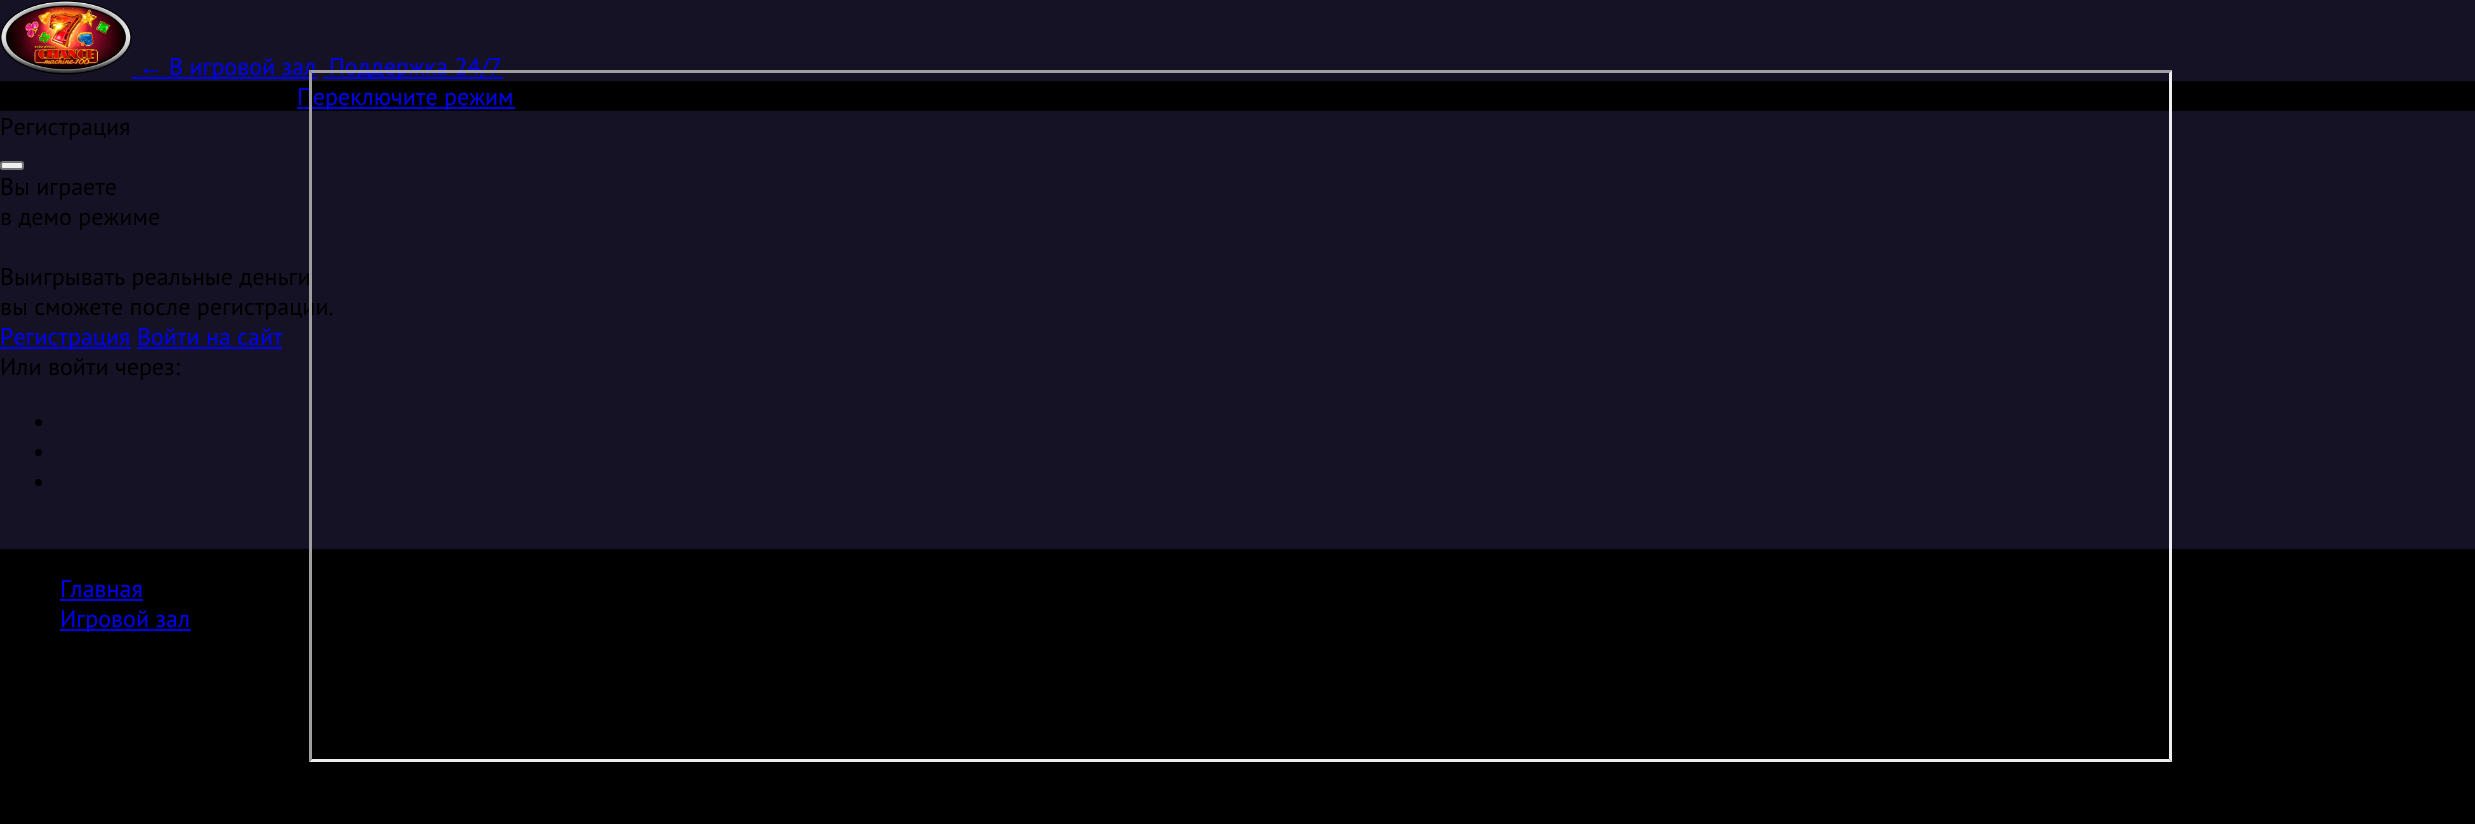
#include "include/core/SkBlurTypes.h"
#include "include/core/SkCanvas.h"
#include "include/core/SkData.h"
#include "include/core/SkFont.h"
#include "include/core/SkFontMgr.h"
#include "include/core/SkImage.h"
#include "include/core/SkMaskFilter.h"
#include "include/core/SkPaint.h"
#include "include/core/SkPathBuilder.h"
#include "include/core/SkTextBlob.h"
#include "include/effects/SkDashPathEffect.h"
#include "include/effects/SkGradientShader.h"
#include "include/utils/SkParsePath.h"

extern sk_sp<SkFontMgr> fontMgr;

void draw(SkCanvas* canvas) {
    SkPaint p;
    p.setAntiAlias(true);
    auto font = [&](const char* family, int weight, float size, bool italic = false) {
        SkFontStyle style(weight, SkFontStyle::kNormal_Width,
            italic ? SkFontStyle::kItalic_Slant : SkFontStyle::kUpright_Slant);
        SkFont result(fontMgr->matchFamilyStyle(family, style), size);
        result.setSubpixel(true);
        return result;
    };
    auto drawPhoto = [&](const char* path, float l, float t, float r, float b) {
        auto image = SkImages::DeferredFromEncodedData(SkData::MakeFromFileName(path));
        canvas->drawImageRect(image, SkRect::MakeLTRB(l, t, r, b), SkSamplingOptions());
    };
    canvas->clear(0xFF000000);
    p.setColor(0xFF151225);
    canvas->drawRect(SkRect::MakeLTRB(0, 0, 2475, 81), p);
    drawPhoto("media/1.png", 0, 0, 132, 75);
    auto font1 = font("Liberation Sans", 400, 24);
    p.setColor(0xFF0000EE);
    canvas->drawString("←", 139, 75, font1, p);
    canvas->drawRect(SkRect::MakeLTRB(132, 77, 317, 79), p);
    auto font2 = font("PT Sans", 400, 24);
    canvas->drawString("В игровой зал", 169, 75, font2, p);
    canvas->drawRect(SkRect::MakeLTRB(323, 77, 503, 79), p);
    canvas->drawString("Поддержка 24/7", 329, 75, font2, p);
    p.setColor(0xFF9F9F9F);
    canvas->drawPath(SkPathBuilder().moveTo(309, 70).lineTo(2172, 70).lineTo(2169, 73).lineTo(312, 73).close().detach(), p);
    p.setColor(0xFF151225);
    canvas->drawRect(SkRect::MakeLTRB(0, 111, 2475, 549), p);
    p.setColor(0xFFEEEEEE);
    canvas->drawPath(SkPathBuilder().moveTo(2172, 70).lineTo(2172, 762).lineTo(2169, 759).lineTo(2169, 73).close().detach(), p);
    canvas->drawPath(SkPathBuilder().moveTo(2172, 762).lineTo(309, 762).lineTo(312, 759).lineTo(2169, 759).close().detach(), p);
    p.setColor(0xFF0000EE);
    canvas->drawRect(SkRect::MakeLTRB(297, 107, 515, 109), p);
    canvas->drawString("Переключите режим", 297, 105, font2, p);
    p.setColor(0xFF000000);
    canvas->drawString("вы сможете после регистрации.", 0, 315, font2, p);
    p.setColor(0xFF9F9F9F);
    canvas->drawPath(SkPathBuilder().moveTo(309, 762).lineTo(309, 70).lineTo(312, 73).lineTo(312, 759).close().detach(), p);
    p.setColor(0xFF000000);
    canvas->drawString("Регистрация", 0, 135, font2, p);
    p.setColor(0xFFEFEFEF);
    canvas->drawRoundRect(SkRect::MakeLTRB(1, 162, 23, 169), 2, 2, p);
    p.setStyle(SkPaint::kStroke_Style);
    p.setStrokeWidth(2);
    p.setColor(0xFF767676);
    canvas->drawRoundRect(SkRect::MakeLTRB(1, 162, 23, 169), 2, 2, p);
    p.setStyle(SkPaint::kFill_Style);
    p.setColor(0xFF000000);
    {
        const struct { const char* s; float x, y; } items[] = {
            {"Вы играете", 0, 195},
            {"в демо режиме", 0, 225},
            {"Выигрывать реальные деньги", 0, 285},
        };
        for (auto [s, x, y] : items) {
            canvas->drawString(s, x, y, font2, p);
        }
    }
    p.setColor(0xFF0000EE);
    canvas->drawRect(SkRect::MakeLTRB(0, 347, 131, 349), p);
    canvas->drawString("Регистрация Войти на сайт", 0, 345, font2, p);
    canvas->drawRect(SkRect::MakeLTRB(137, 347, 282, 349), p);
    p.setColor(0xFF000000);
    canvas->drawString("Или войти через:", 0, 375, font2, p);
    canvas->drawCircle(38.5f, 422.5f, 3.5f, p);
    canvas->drawCircle(38.5f, 452.5f, 3.5f, p);
    canvas->drawCircle(38.5f, 482.5f, 3.5f, p);
    p.setColor(0xFF0000EE);
    canvas->drawString("Главная", 60, 597, font2, p);
    canvas->drawRect(SkRect::MakeLTRB(60, 599, 143, 601), p);
    canvas->drawRect(SkRect::MakeLTRB(60, 629, 191, 631), p);
    canvas->drawString("Игровой зал", 60, 627, font2, p);
}
